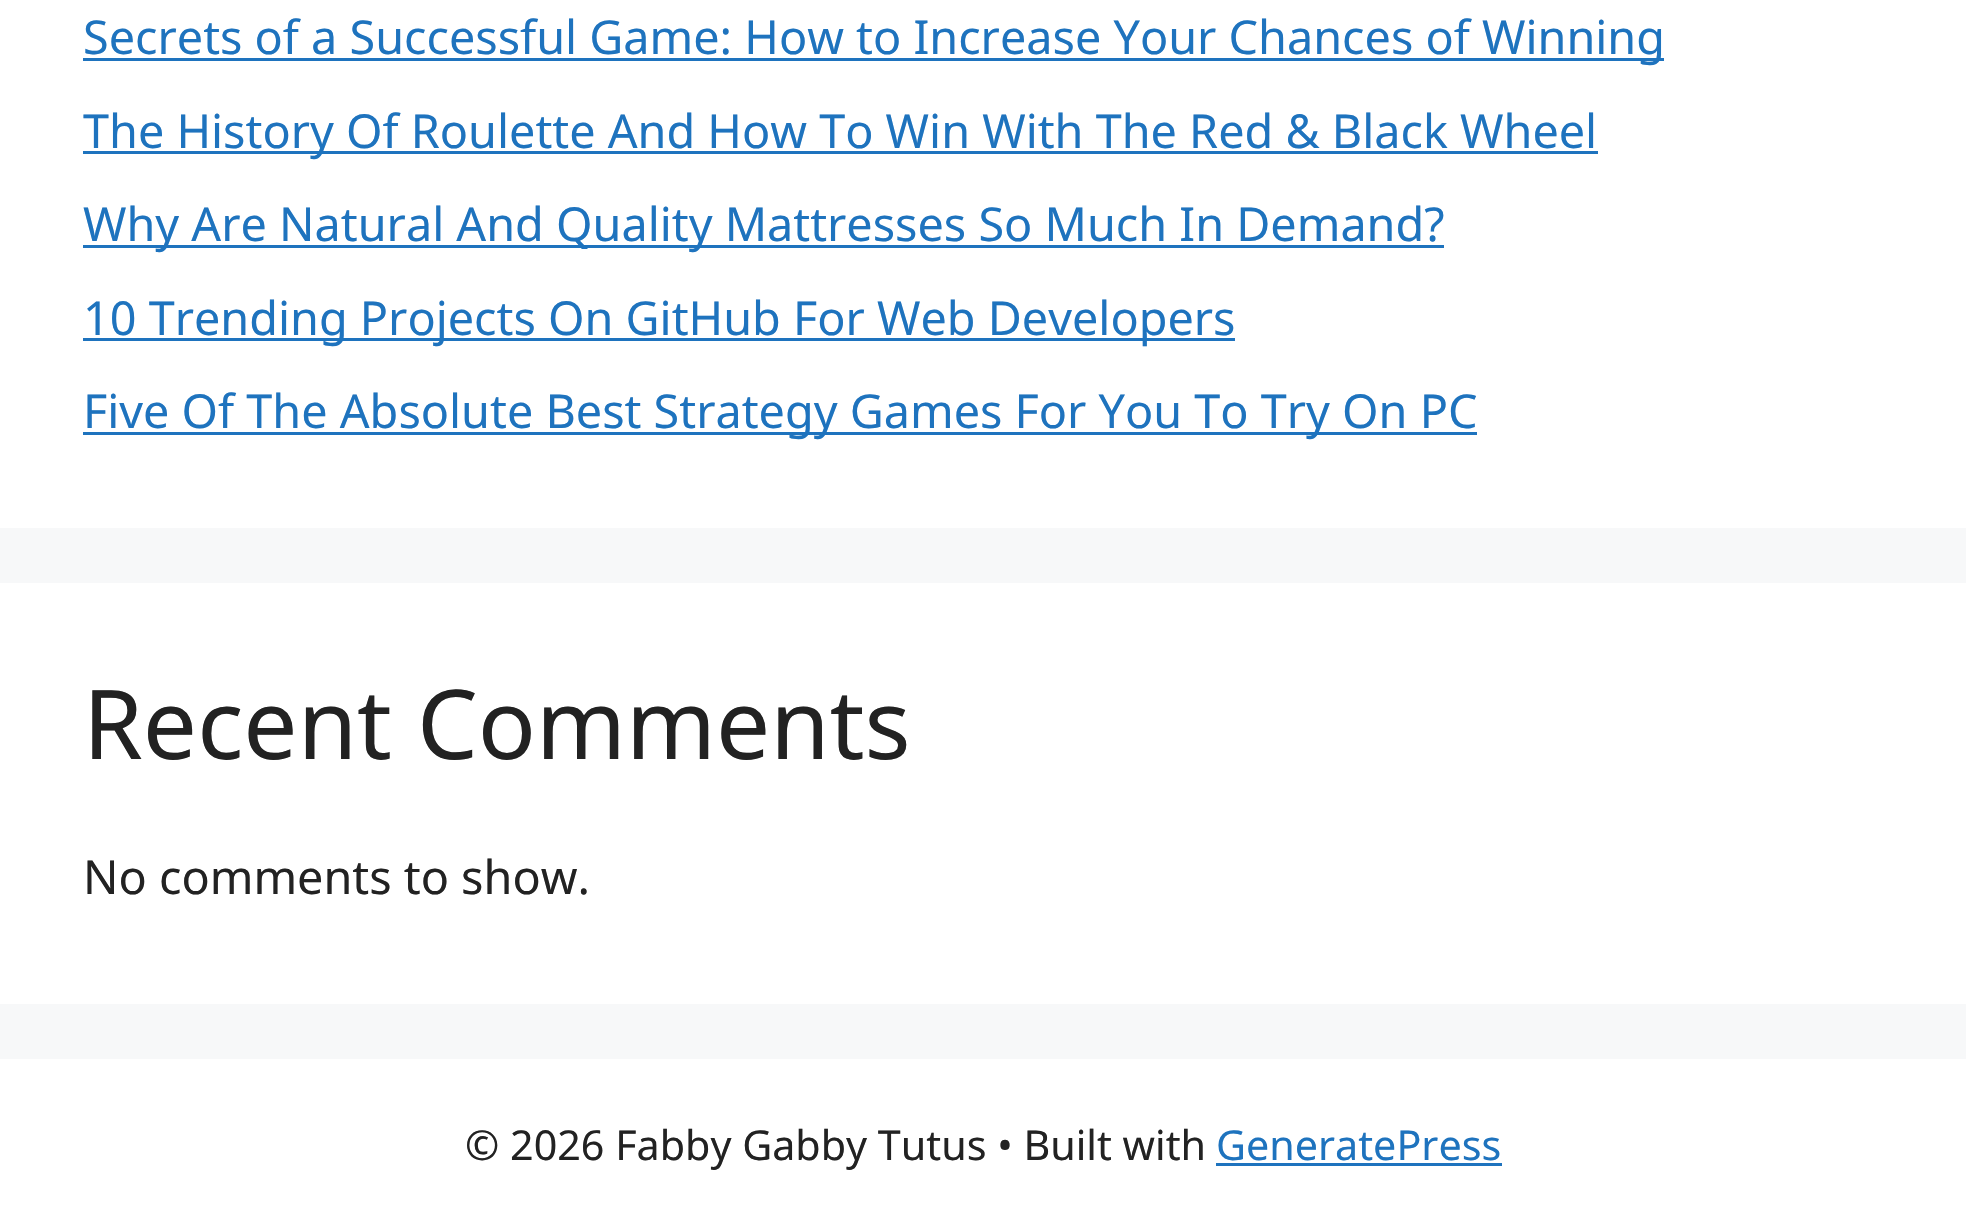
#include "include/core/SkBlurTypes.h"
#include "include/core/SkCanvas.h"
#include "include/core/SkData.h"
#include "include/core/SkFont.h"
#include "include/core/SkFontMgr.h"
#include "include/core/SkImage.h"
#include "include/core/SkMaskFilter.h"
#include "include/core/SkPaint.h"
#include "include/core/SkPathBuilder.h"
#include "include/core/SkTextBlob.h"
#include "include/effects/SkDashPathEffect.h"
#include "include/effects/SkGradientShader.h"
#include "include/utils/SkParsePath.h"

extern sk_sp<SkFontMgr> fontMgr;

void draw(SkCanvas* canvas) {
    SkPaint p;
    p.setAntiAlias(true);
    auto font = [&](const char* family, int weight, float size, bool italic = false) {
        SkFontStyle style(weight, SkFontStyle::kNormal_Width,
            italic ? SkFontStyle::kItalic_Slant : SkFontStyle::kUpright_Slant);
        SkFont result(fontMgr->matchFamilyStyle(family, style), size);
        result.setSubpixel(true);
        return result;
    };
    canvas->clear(0xFFF7F8F9);
    p.setColor(0xFFFFFFFF);
    canvas->drawRect(SkRect::MakeLTRB(0, 0, 1966, 528), p);
    p.setColor(0xFF1E73BE);
    canvas->drawRect(SkRect::MakeLTRB(83, 58, 1664, 61), p);
    auto font1 = font("Noto Sans", 400, 46.75f);
    canvas->drawString("Secrets of a Successful Game: How to Increase Your Chances of Winning", 83, 54, font1, p);
    canvas->drawRect(SkRect::MakeLTRB(83, 151, 1598, 154), p);
    canvas->drawString("The History Of Roulette And How To Win With The Red & Black Wheel", 83, 148, font1, p);
    canvas->drawRect(SkRect::MakeLTRB(83, 245, 1444, 248), p);
    canvas->drawString("Why Are Natural And Quality Mattresses So Much In Demand?", 83, 241, font1, p);
    canvas->drawRect(SkRect::MakeLTRB(83, 338, 1235, 341), p);
    canvas->drawString("10 Trending Projects On GitHub For Web Developers", 83, 335, font1, p);
    canvas->drawRect(SkRect::MakeLTRB(83, 432, 1477, 435), p);
    canvas->drawString("Five Of The Absolute Best Strategy Games For You To Try On PC", 83, 428, font1, p);
    p.setColor(0xFFFFFFFF);
    canvas->drawRect(SkRect::MakeLTRB(0, 583, 1966, 1004), p);
    auto font2 = font("Noto Sans", 400, 96.25f);
    p.setColor(0xFF222222);
    canvas->drawString("Recent Comments", 83, 759, font2, p);
    canvas->drawString("No comments to show.", 83, 894, font1, p);
    p.setColor(0xFFFFFFFF);
    canvas->drawRect(SkRect::MakeLTRB(0, 1059, 1966, 1228), p);
    auto font3 = font("Noto Sans", 400, 41.25f);
    p.setColor(0xFF222222);
    canvas->drawString("© 2026 Fabby Gabby Tutus • Built with", 465, 1160, font3, p);
    p.setColor(0xFF1E73BE);
    canvas->drawString("GeneratePress", 1216, 1160, font3, p);
    canvas->drawRect(SkRect::MakeLTRB(1216, 1163, 1502, 1166), p);
}
